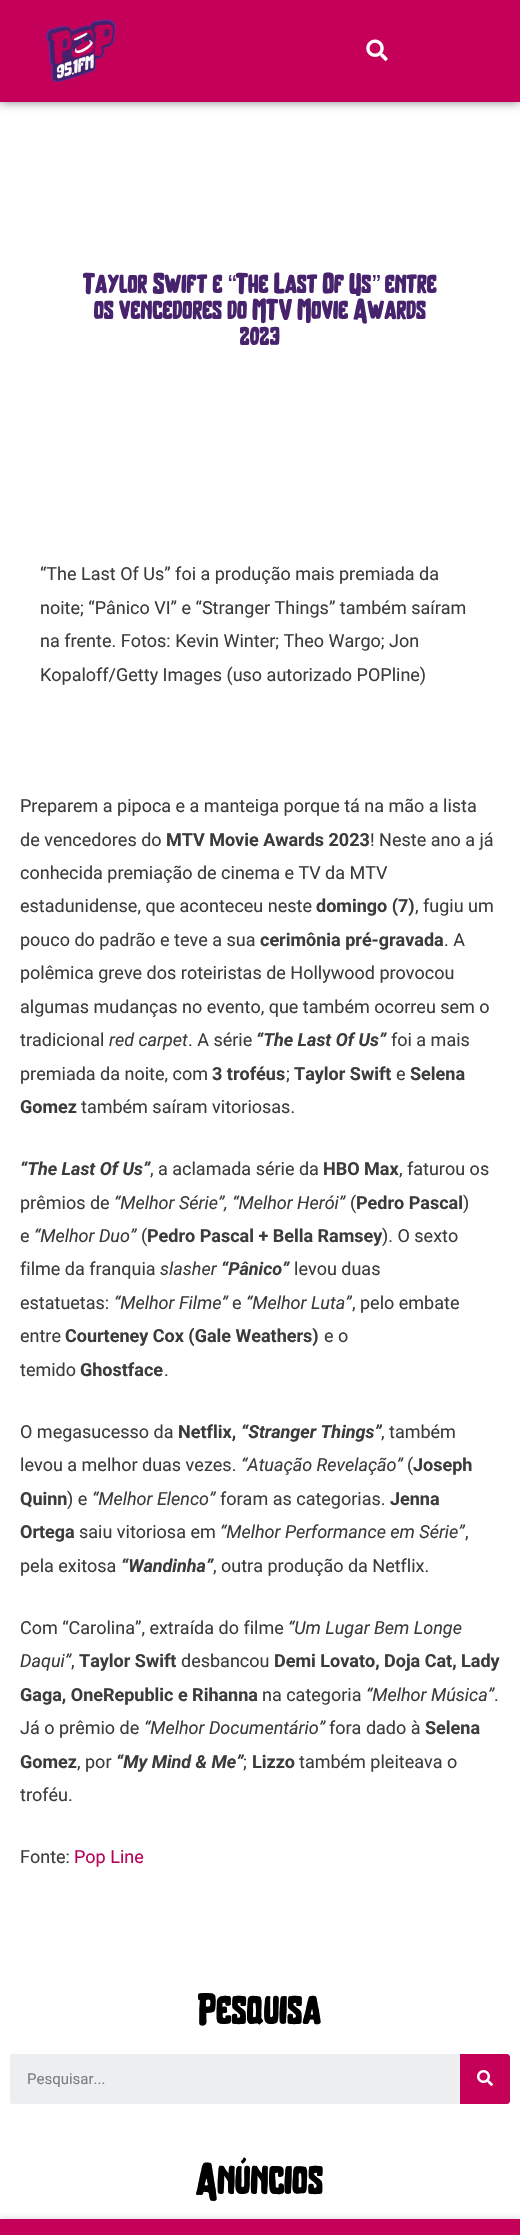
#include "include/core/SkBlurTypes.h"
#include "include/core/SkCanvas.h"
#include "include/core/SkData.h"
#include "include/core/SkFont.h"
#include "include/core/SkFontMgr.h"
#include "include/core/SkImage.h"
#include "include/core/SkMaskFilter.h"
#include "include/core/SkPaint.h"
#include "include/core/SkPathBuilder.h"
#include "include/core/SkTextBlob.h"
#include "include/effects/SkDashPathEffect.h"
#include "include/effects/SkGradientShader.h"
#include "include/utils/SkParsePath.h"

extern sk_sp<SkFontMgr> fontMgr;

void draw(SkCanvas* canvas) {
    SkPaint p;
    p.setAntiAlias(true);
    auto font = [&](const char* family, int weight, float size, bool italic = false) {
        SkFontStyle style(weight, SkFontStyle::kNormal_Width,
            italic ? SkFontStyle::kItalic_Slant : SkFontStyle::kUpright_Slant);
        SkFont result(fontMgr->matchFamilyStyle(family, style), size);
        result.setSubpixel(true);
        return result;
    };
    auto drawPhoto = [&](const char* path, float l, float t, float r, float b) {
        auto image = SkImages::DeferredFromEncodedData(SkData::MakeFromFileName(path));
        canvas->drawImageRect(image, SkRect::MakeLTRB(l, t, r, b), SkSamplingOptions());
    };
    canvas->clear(0xFFFFFFFF);
    p.setColor(0x80000000);
    p.setMaskFilter(SkMaskFilter::MakeBlur(kNormal_SkBlurStyle, 5));
    canvas->drawRect(SkRect::MakeLTRB(0, 0, 520, 102), p);
    p.setMaskFilter(nullptr);
    p.setColor(0xFFC40059);
    canvas->drawRect(SkRect::MakeLTRB(0, 0, 520, 102), p);
    drawPhoto("media/1.png", 46, 19, 116, 82);
    drawPhoto("media/2.png", 366, 39, 388, 61);
    auto font1 = font("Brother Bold", 700, 26);
    p.setColor(0xFF47236E);
    canvas->drawString("Taylor Swift e", 83, 293, font1, p);
    auto font2 = font("Liberation Sans", 400, 26);
    canvas->drawString("“", 228, 293, font2, p);
    canvas->drawString("The Last Of Us", 236, 293, font1, p);
    canvas->drawString("”", 372, 293, font2, p);
    {
        const struct { const char* s; float x, y; } items[] = {
            {"entre", 385, 293},
            {"os vencedores do MTV Movie Awards", 94, 319},
            {"2023", 240, 345},
        };
        for (auto [s, x, y] : items) {
            canvas->drawString(s, x, y, font1, p);
        }
    }
    auto font3 = font("Roboto", 400, 18);
    p.setColor(0xFF3C3C3C);
    {
        const struct { const char* s; float x, y; } items[] = {
            {"“The Last Of Us” foi a produção mais premiada da", 40, 580},
            {"noite; “Pânico VI” e “Stranger Things” também saíram", 40, 614},
            {"na frente. Fotos: Kevin Winter; Theo Wargo; Jon", 40, 647},
            {"Kopaloff/Getty Images (uso autorizado POPline)", 40, 681},
            {"Preparem a pipoca e a manteiga porque tá na mão a lista", 20, 812},
            {"de vencedores do", 20, 846},
        };
        for (auto [s, x, y] : items) {
            canvas->drawString(s, x, y, font3, p);
        }
    }
    auto font4 = font("Roboto", 700, 18);
    canvas->drawString("MTV Movie Awards 2023", 166, 846, font4, p);
    {
        const struct { const char* s; float x, y; } items[] = {
            {"! Neste ano a já", 370, 846},
            {"conhecida premiação de cinema e TV da MTV", 20, 879},
            {"estadunidense, que aconteceu neste", 20, 912},
        };
        for (auto [s, x, y] : items) {
            canvas->drawString(s, x, y, font3, p);
        }
    }
    canvas->drawString("domingo (7)", 316, 912, font4, p);
    canvas->drawString(", fugiu um", 415, 912, font3, p);
    canvas->drawString("pouco do padrão e teve a sua", 20, 946, font3, p);
    canvas->drawString("cerimônia pré-gravada", 260, 946, font4, p);
    {
        const struct { const char* s; float x, y; } items[] = {
            {". A", 444, 946},
            {"polêmica greve dos roteiristas de Hollywood provocou", 20, 979},
            {"algumas mudanças no evento, que também ocorreu sem o", 20, 1013},
            {"tradicional", 20, 1046},
        };
        for (auto [s, x, y] : items) {
            canvas->drawString(s, x, y, font3, p);
        }
    }
    auto font5 = font("Roboto", 400, 18, true);
    canvas->drawString("red carpet", 109, 1046, font5, p);
    canvas->drawString(". A série", 188, 1046, font3, p);
    auto font6 = font("Roboto", 700, 18, true);
    canvas->drawString("“The Last Of Us”", 256, 1046, font6, p);
    canvas->drawString("foi a mais", 391, 1046, font3, p);
    canvas->drawString("premiada da noite, com", 20, 1080, font3, p);
    canvas->drawString("3 troféus", 212, 1080, font4, p);
    canvas->drawString(";", 286, 1080, font3, p);
    canvas->drawString("Taylor Swift", 294, 1080, font4, p);
    canvas->drawString("e", 396, 1080, font3, p);
    canvas->drawString("Selena", 410, 1080, font4, p);
    canvas->drawString("Gomez", 20, 1113, font4, p);
    canvas->drawString("também saíram vitoriosas.", 81, 1113, font3, p);
    canvas->drawString("“The Last Of Us”", 20, 1175, font6, p);
    canvas->drawString(", a aclamada série da", 150, 1175, font3, p);
    canvas->drawString("HBO Max", 323, 1175, font4, p);
    canvas->drawString(", faturou os", 399, 1175, font3, p);
    canvas->drawString("prêmios de", 20, 1209, font3, p);
    canvas->drawString("“Melhor Série”, “Melhor Herói”", 114, 1209, font5, p);
    canvas->drawString("(", 350, 1209, font3, p);
    canvas->drawString("Pedro Pascal", 356, 1209, font4, p);
    canvas->drawString(")", 463, 1209, font3, p);
    canvas->drawString("e", 20, 1242, font3, p);
    canvas->drawString("“Melhor Duo”", 34, 1242, font5, p);
    canvas->drawString("(", 141, 1242, font3, p);
    canvas->drawString("Pedro Pascal + Bella Ramsey", 147, 1242, font4, p);
    canvas->drawString("). O sexto", 382, 1242, font3, p);
    canvas->drawString("filme da franquia", 20, 1275, font3, p);
    canvas->drawString("slasher", 160, 1275, font5, p);
    canvas->drawString("“Pânico”", 221, 1275, font6, p);
    canvas->drawString("levou duas", 294, 1275, font3, p);
    canvas->drawString("estatuetas:", 20, 1309, font3, p);
    canvas->drawString("“Melhor Filme”", 114, 1309, font5, p);
    canvas->drawString("e", 232, 1309, font3, p);
    canvas->drawString("“Melhor Luta”", 246, 1309, font5, p);
    canvas->drawString(", pelo embate", 352, 1309, font3, p);
    canvas->drawString("entre", 20, 1342, font3, p);
    canvas->drawString("Courteney Cox (Gale Weathers)", 65, 1342, font4, p);
    canvas->drawString("e o", 324, 1342, font3, p);
    canvas->drawString("temido", 20, 1376, font3, p);
    canvas->drawString("Ghostface", 80, 1376, font4, p);
    canvas->drawString(".", 164, 1376, font3, p);
    canvas->drawString("O megasucesso da", 20, 1438, font3, p);
    canvas->drawString("Netflix,", 178, 1438, font4, p);
    canvas->drawString("“Stranger Things”", 241, 1438, font6, p);
    canvas->drawString(", também", 381, 1438, font3, p);
    canvas->drawString("levou a melhor duas vezes.", 20, 1471, font3, p);
    canvas->drawString("“Atuação Revelação”", 241, 1471, font5, p);
    canvas->drawString("(", 407, 1471, font3, p);
    canvas->drawString("Joseph", 413, 1471, font4, p);
    canvas->drawString("Quinn", 20, 1505, font4, p);
    canvas->drawString(") e", 67, 1505, font3, p);
    canvas->drawString("“Melhor Elenco”", 92, 1505, font5, p);
    canvas->drawString("foram as categorias.", 220, 1505, font3, p);
    canvas->drawString("Jenna", 390, 1505, font4, p);
    canvas->drawString("Ortega", 20, 1538, font4, p);
    canvas->drawString("saiu vitoriosa em", 79, 1538, font3, p);
    canvas->drawString("“Melhor Performance em Série”", 220, 1538, font5, p);
    canvas->drawString(",", 465, 1538, font3, p);
    canvas->drawString("pela exitosa", 20, 1572, font3, p);
    canvas->drawString("“Wandinha”", 121, 1572, font6, p);
    canvas->drawString(", outra produção da Netflix.", 213, 1572, font3, p);
    canvas->drawString("Com “Carolina”, extraída do filme", 20, 1634, font3, p);
    canvas->drawString("“Um Lugar Bem Longe", 288, 1634, font5, p);
    canvas->drawString("Daqui”", 20, 1667, font5, p);
    canvas->drawString(",", 71, 1667, font3, p);
    canvas->drawString("Taylor Swift", 79, 1667, font4, p);
    canvas->drawString("desbancou", 181, 1667, font3, p);
    canvas->drawString("Demi Lovato, Doja Cat, Lady", 274, 1667, font4, p);
    canvas->drawString("Gaga, OneRepublic e Rihanna", 20, 1701, font4, p);
    canvas->drawString("na categoria", 262, 1701, font3, p);
    canvas->drawString("“Melhor Música”", 366, 1701, font5, p);
    canvas->drawString(".", 494, 1701, font3, p);
    canvas->drawString("Já o prêmio de", 20, 1734, font3, p);
    canvas->drawString("“Melhor Documentário”", 144, 1734, font5, p);
    canvas->drawString("fora dado à", 329, 1734, font3, p);
    canvas->drawString("Selena", 425, 1734, font4, p);
    canvas->drawString("Gomez", 20, 1768, font4, p);
    canvas->drawString(", por", 77, 1768, font3, p);
    canvas->drawString("“My Mind & Me”", 116, 1768, font6, p);
    canvas->drawString(";", 243, 1768, font3, p);
    canvas->drawString("Lizzo", 252, 1768, font4, p);
    {
        const struct { const char* s; float x, y; } items[] = {
            {"também pleiteava o", 299, 1768},
            {"troféu.", 20, 1801},
            {"Fonte:", 20, 1863},
        };
        for (auto [s, x, y] : items) {
            canvas->drawString(s, x, y, font3, p);
        }
    }
    p.setColor(0xFFB8045A);
    canvas->drawString("Pop Line", 74, 1863, font3, p);
    auto font7 = font("Brother Bold", 700, 40);
    p.setColor(0xFF000000);
    canvas->drawString("Pesquisa", 198, 2024, font7, p);
    p.setColor(0xFFECEEEF);
    canvas->drawRoundRect(SkRect::MakeLTRB(10, 2054, 510, 2104), 3, 3, p);
    auto font8 = font("Roboto", 400, 15);
    p.setColor(0xFF7D7E7E);
    canvas->drawString("Pesquisar...", 27, 2084, font8, p);
    p.setColor(0xFFC40059);
    canvas->drawPath(SkPathBuilder().moveTo(460, 2054).lineTo(507, 2054).cubicTo(508.5f, 2054, 510, 2055.5f, 510, 2057).lineTo(510, 2101).cubicTo(510, 2102.5f, 508.5f, 2104, 507, 2104).lineTo(460, 2104).close().detach(), p);
    drawPhoto("media/3.png", 477, 2070, 493, 2086);
    p.setColor(0xFF000000);
    canvas->drawString("Anúncios", 196, 2194, font7, p);
    p.setColor(0x1A000000);
    p.setMaskFilter(SkMaskFilter::MakeBlur(kNormal_SkBlurStyle, 2.5f));
    canvas->drawRect(SkRect::MakeLTRB(0, 2217, 520, 2233), p);
    p.setMaskFilter(nullptr);
    p.setColor(0xFFC40059);
    canvas->drawRect(SkRect::MakeLTRB(0, 2219, 520, 2235), p);
}
